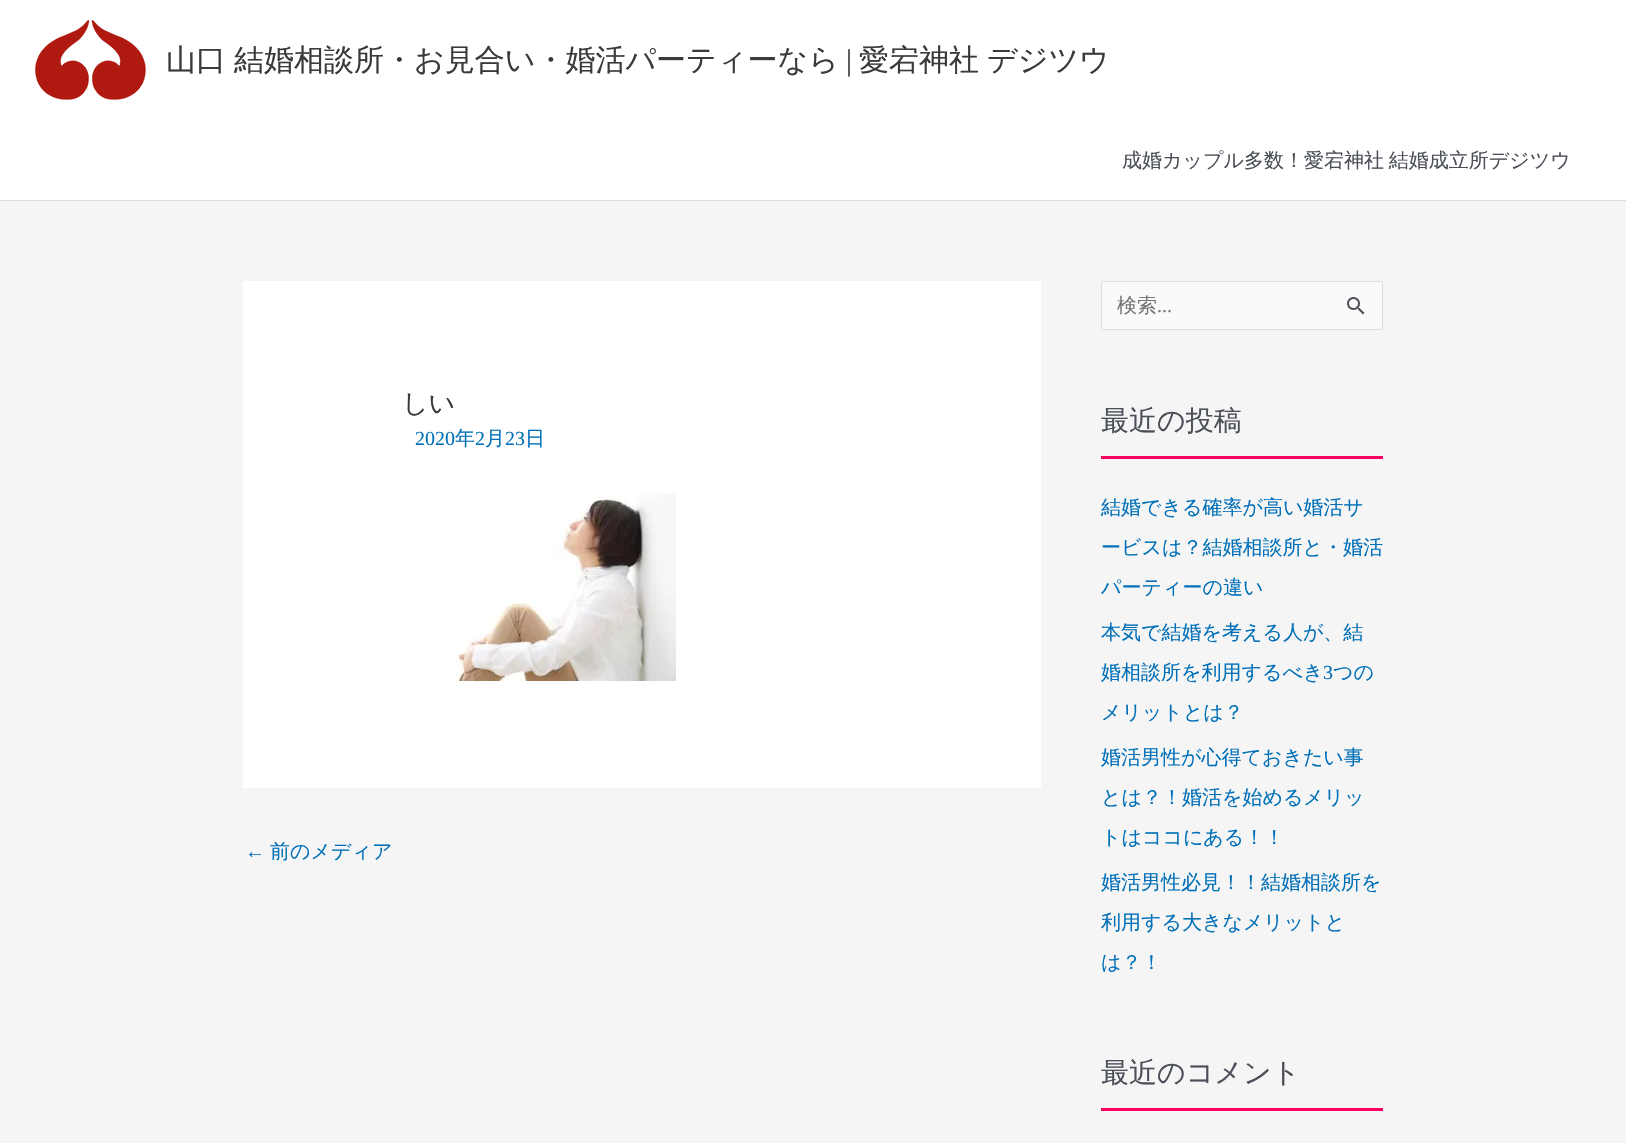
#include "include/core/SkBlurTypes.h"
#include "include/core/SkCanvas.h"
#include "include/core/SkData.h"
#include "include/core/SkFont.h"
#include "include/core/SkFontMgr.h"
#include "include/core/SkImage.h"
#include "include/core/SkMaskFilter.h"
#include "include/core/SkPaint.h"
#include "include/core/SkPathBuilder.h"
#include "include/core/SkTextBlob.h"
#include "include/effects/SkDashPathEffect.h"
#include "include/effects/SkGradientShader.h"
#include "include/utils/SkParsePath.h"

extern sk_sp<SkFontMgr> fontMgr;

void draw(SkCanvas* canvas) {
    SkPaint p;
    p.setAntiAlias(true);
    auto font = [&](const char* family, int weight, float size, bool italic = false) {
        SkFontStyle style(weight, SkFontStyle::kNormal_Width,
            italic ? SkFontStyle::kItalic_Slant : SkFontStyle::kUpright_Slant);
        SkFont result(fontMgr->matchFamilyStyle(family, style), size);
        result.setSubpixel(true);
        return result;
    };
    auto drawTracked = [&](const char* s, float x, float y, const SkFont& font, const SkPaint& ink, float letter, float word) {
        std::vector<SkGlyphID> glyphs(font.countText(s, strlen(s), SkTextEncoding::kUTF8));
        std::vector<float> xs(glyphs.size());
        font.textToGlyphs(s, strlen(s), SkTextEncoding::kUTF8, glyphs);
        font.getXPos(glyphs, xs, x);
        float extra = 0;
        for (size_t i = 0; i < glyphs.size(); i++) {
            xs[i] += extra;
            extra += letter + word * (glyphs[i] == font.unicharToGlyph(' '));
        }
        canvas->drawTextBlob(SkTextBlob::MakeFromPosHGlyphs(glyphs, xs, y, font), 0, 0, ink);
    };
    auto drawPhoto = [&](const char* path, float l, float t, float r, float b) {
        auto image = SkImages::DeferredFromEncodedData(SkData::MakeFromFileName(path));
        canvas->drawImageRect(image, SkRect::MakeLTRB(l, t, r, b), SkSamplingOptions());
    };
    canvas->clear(0xFFF5F5F5);
    p.setColor(0xFFFFFFFF);
    canvas->drawRect(SkRect::MakeLTRB(0, 0, 1626, 200), p);
    p.setColor(0xFFDDDDDD);
    canvas->drawRect(SkRect::MakeLTRB(0, 200, 1626, 201), p);
    drawPhoto("media/1.png", 35, 20, 146, 100);
    auto font1 = font("WenQuanYi Zen Hei", 500, 30);
    p.setColor(0xFF3A3A3A);
    drawTracked("山口 結婚相談所・お見合い・婚活パーティーなら", 166, 70, font1, p, 0, -1);
    auto font2 = font("Liberation Serif", 400, 30);
    canvas->drawString("|", 846, 70, font2, p);
    drawTracked("愛宕神社 デジツウ", 859, 70, font1, p, 0, -1);
    auto font3 = font("WenQuanYi Zen Hei", 500, 20);
    p.setColor(0xFF4B4F58);
    drawTracked("成婚カップル多数！愛宕神社 結婚成立所デジツウ", 1122, 167, font3, p, 0, -1);
    p.setColor(0xFFFFFFFF);
    canvas->drawRect(SkRect::MakeLTRB(243, 281, 1041, 788), p);
    auto font4 = font("Noto Sans", 400, 26);
    p.setColor(0xFF3A3A3A);
    canvas->drawString("難", 376, 412, font4, p);
    auto font5 = font("WenQuanYi Zen Hei", 500, 26);
    canvas->drawString("しい", 402, 412, font5, p);
    auto font6 = font("Liberation Serif", 400, 20);
    p.setColor(0xFF0170B9);
    canvas->drawString("2020", 415, 445, font6, p);
    canvas->drawString("年", 455, 445, font3, p);
    canvas->drawString("2", 475, 445, font6, p);
    canvas->drawString("月", 485, 445, font3, p);
    canvas->drawString("23", 505, 445, font6, p);
    canvas->drawString("日", 525, 445, font3, p);
    drawPhoto("media/2.png", 455, 493, 676, 681);
    canvas->drawString("←", 245, 858, font6, p);
    canvas->drawString("前のメディア", 270, 858, font3, p);
    p.setColor(0xFFFAFAFA);
    canvas->drawRoundRect(SkRect::MakeLTRB(1101.5f, 281.5f, 1382.5f, 329.5f), 1.5f, 1.5f, p);
    p.setStyle(SkPaint::kStroke_Style);
    p.setStrokeWidth(1);
    p.setColor(0xFFDDDDDD);
    canvas->drawRoundRect(SkRect::MakeLTRB(1101.5f, 281.5f, 1382.5f, 329.5f), 1.5f, 1.5f, p);
    p.setStyle(SkPaint::kFill_Style);
    p.setColor(0xFF757575);
    canvas->drawString("検索", 1117, 312, font3, p);
    canvas->drawString("...", 1157, 312, font6, p);
    drawPhoto("media/3.png", 1347, 297, 1365, 315);
    p.setColor(0xFFFF0061);
    canvas->drawRect(SkRect::MakeLTRB(1101, 456, 1383, 459), p);
    auto font7 = font("WenQuanYi Zen Hei", 500, 28);
    p.setColor(0xFF4B4F58);
    canvas->drawString("最近の投稿", 1101, 430, font7, p);
    p.setColor(0xFF0170B9);
    {
        const struct { const char* s; float x, y; } items[] = {
            {"結婚できる確率が高い婚活サ", 1101, 514},
            {"ービスは？結婚相談所と・婚活", 1101, 554},
            {"パーティーの違い", 1101, 594},
            {"本気で結婚を考える人が、結", 1101, 639},
            {"婚相談所を利用するべき", 1101, 679},
        };
        for (auto [s, x, y] : items) {
            canvas->drawString(s, x, y, font3, p);
        }
    }
    canvas->drawString("3", 1323, 679, font6, p);
    {
        const struct { const char* s; float x, y; } items[] = {
            {"つの", 1333, 679},
            {"メリットとは？", 1101, 719},
            {"婚活男性が心得ておきたい事", 1101, 764},
            {"とは？！婚活を始めるメリッ", 1101, 804},
            {"トはココにある！！", 1101, 844},
            {"婚活男性必見！！結婚相談所を", 1101, 889},
            {"利用する大きなメリットと", 1101, 929},
            {"は？！", 1101, 969},
        };
        for (auto [s, x, y] : items) {
            canvas->drawString(s, x, y, font3, p);
        }
    }
    p.setColor(0xFFFF0061);
    canvas->drawRect(SkRect::MakeLTRB(1101, 1108, 1383, 1111), p);
    p.setColor(0xFF4B4F58);
    canvas->drawString("最近のコメント", 1101, 1082, font7, p);
}
